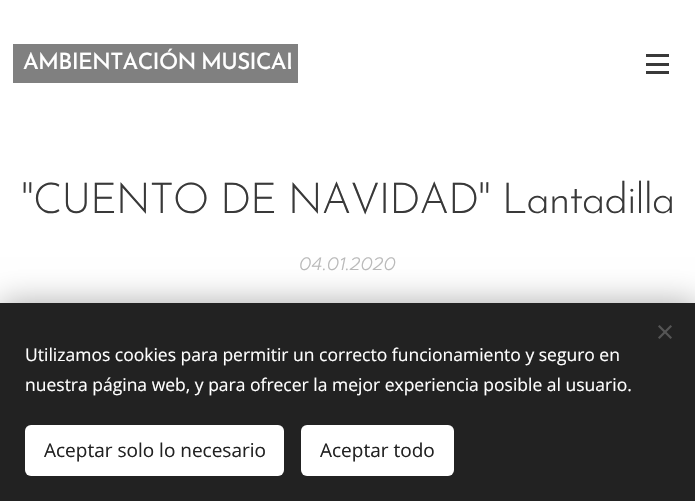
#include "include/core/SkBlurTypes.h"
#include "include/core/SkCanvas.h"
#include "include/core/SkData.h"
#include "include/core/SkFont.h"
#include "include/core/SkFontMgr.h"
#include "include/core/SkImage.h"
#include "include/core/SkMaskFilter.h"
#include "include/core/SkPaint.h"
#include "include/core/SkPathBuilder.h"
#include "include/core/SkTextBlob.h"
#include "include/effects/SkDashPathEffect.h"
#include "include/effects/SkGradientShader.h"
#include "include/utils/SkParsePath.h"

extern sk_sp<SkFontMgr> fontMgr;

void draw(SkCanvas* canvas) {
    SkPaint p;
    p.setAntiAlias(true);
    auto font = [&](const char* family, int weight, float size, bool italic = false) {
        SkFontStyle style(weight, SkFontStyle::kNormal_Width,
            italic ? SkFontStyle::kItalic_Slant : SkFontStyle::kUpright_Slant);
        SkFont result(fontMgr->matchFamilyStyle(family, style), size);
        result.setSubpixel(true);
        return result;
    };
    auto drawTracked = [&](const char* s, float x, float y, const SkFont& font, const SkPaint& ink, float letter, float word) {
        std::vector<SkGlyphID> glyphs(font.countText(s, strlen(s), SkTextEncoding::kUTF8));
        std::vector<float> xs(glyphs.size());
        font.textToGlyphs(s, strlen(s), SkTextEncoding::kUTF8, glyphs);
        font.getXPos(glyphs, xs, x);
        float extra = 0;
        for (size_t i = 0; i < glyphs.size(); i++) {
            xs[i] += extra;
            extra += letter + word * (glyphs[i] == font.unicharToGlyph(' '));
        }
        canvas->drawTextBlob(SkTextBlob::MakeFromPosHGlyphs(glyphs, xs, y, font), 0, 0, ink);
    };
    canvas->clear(0xFFFFFFFF);
    p.setColor(0xFF808080);
    canvas->drawRect(SkRect::MakeLTRB(13, 44, 298, 83), p);
    canvas->save();
    canvas->clipRect(SkRect::MakeLTRB(19, 46, 291, 80));
    auto font1 = font("Josefin Sans", 500, 22.5f);
    p.setColor(0xFFFFFFFF);
    drawTracked("AMBIENTACIÓN MUSICAL", 23, 69, font1, p, -0.7f, -1);
    canvas->restore();
    {
        const struct { float l, t, r, b; SkColor color; } items[] = {
            {646, 63, 669, 66, 0xFF393939},
            {646, 54, 669, 57, 0xFF393939},
            {646, 71, 669, 74, 0xFF393939},
        };
        for (auto [l, t, r, b, color] : items) {
            p.setColor(color);
            canvas->drawRect(SkRect::MakeLTRB(l, t, r, b), p);
        }
    }
    auto font2 = font("Josefin Sans", 300, 42.5f);
    drawTracked("\"CUENTO DE NAVIDAD\" Lantadilla", 21, 213, font2, p, -1.25f, 0);
    auto font3 = font("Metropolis", 300, 18.25f, true);
    p.setColor(0xFFBABABA);
    canvas->drawString("04.01.2020", 299, 270, font3, p);
    p.setColor(0x54000000);
    p.setMaskFilter(SkMaskFilter::MakeBlur(kNormal_SkBlurStyle, 15.5f));
    canvas->drawRect(SkRect::MakeLTRB(0, 303, 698, 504), p);
    p.setMaskFilter(nullptr);
    p.setColor(0xFF222222);
    canvas->drawRect(SkRect::MakeLTRB(0, 303, 695, 501), p);
    p.setColor(0xFF555555);
    canvas->drawPath(SkPathBuilder().moveTo(658, 337.5f).lineTo(670.5f, 325).lineTo(672, 326.5f).lineTo(659.5f, 339).close().detach(), p);
    canvas->drawPath(SkPathBuilder().moveTo(659.5f, 325).lineTo(672, 337.5f).lineTo(670.5f, 339).lineTo(658, 326.5f).close().detach(), p);
    auto font4 = font("Open Sans", 400, 17.5f);
    p.setColor(0xFFFFFFFF);
    canvas->drawString("Utilizamos cookies para permitir un correcto funcionamiento y seguro en", 25, 361, font4, p);
    canvas->drawString("nuestra página web, y para ofrecer la mejor experiencia posible al usuario.", 25, 391, font4, p);
    canvas->drawRoundRect(SkRect::MakeLTRB(25, 425, 284, 476), 6, 6, p);
    auto font5 = font("Open Sans", 400, 19);
    p.setColor(0xFF222222);
    canvas->drawString("Aceptar solo lo necesario", 44, 457, font5, p);
    p.setColor(0xFFFFFFFF);
    canvas->drawRoundRect(SkRect::MakeLTRB(301, 425, 454, 476), 6, 6, p);
    p.setColor(0xFF222222);
    canvas->drawString("Aceptar todo", 320, 457, font5, p);
}
